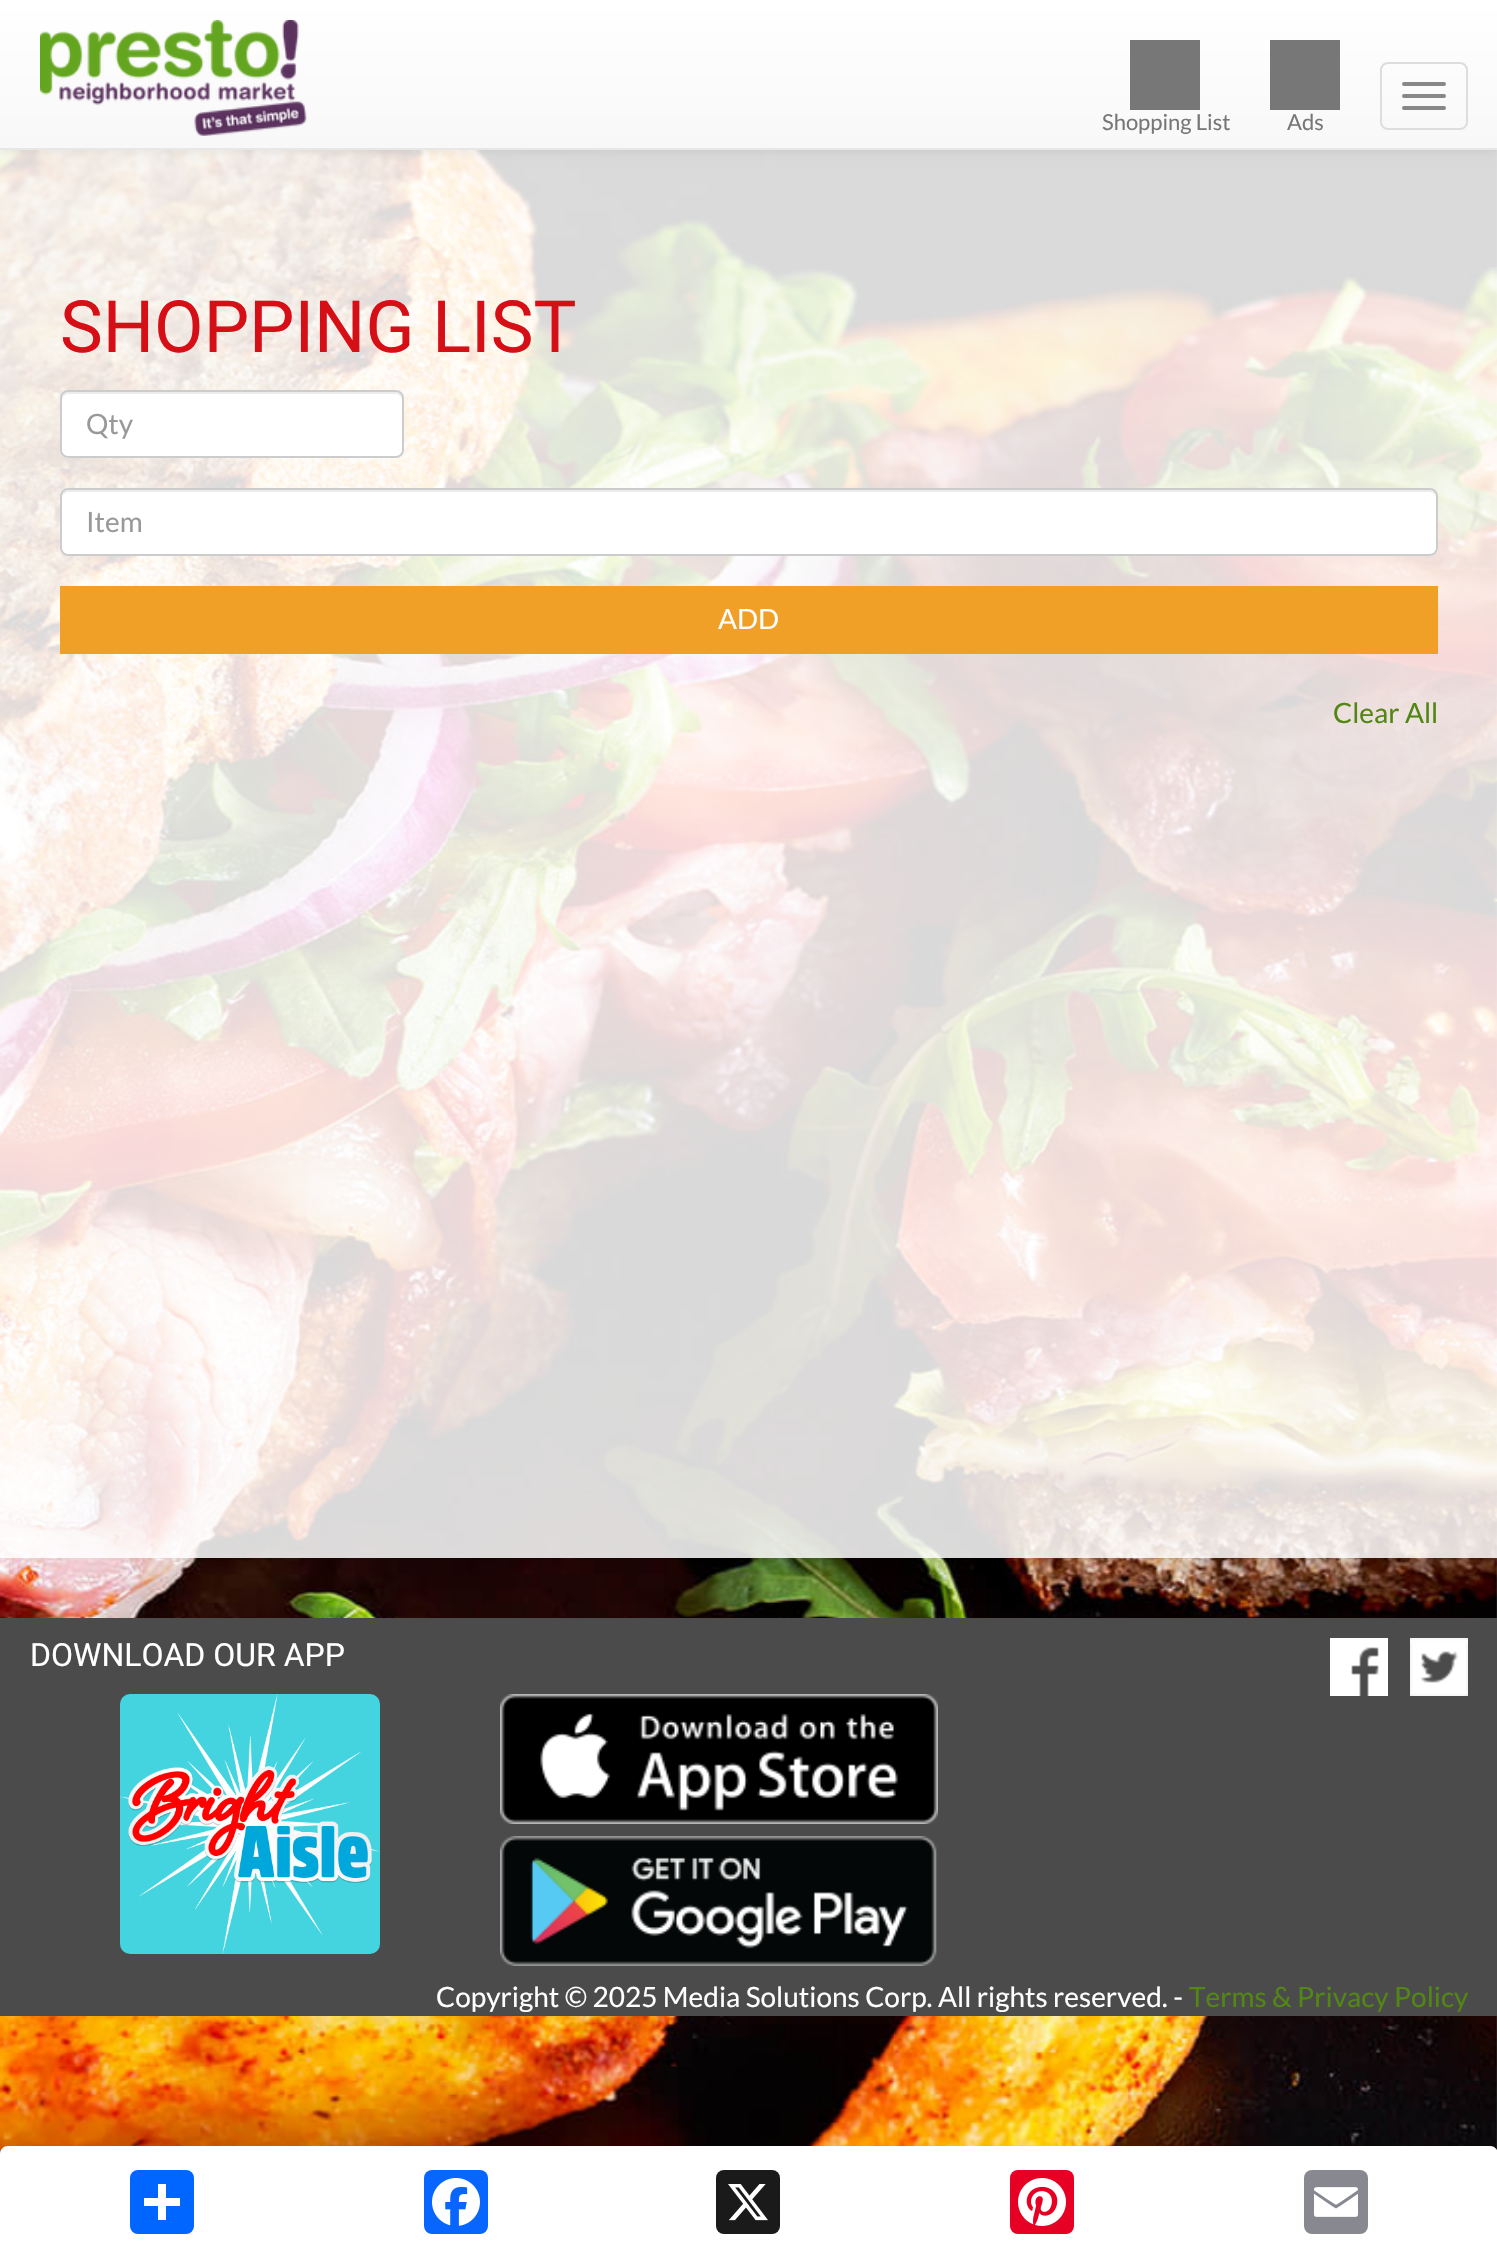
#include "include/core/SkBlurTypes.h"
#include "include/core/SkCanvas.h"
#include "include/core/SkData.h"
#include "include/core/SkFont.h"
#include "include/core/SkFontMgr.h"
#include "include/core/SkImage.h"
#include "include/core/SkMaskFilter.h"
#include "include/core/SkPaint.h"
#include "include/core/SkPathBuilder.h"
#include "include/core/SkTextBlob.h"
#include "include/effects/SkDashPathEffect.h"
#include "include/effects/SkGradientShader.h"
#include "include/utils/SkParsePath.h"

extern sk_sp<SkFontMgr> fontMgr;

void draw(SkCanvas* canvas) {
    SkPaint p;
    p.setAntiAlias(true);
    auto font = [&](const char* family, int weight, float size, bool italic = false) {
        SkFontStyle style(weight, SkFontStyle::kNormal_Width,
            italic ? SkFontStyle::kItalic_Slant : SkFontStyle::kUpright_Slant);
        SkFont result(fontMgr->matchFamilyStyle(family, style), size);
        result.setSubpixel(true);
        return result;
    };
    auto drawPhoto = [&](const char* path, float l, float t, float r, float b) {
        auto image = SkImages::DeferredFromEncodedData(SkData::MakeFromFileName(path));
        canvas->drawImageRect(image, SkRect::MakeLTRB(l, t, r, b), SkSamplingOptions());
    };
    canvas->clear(0xFFFFFFFF);
    drawPhoto("media/1.png", 0, 150, 1497, 2154);
    p.setColor(0xD9FFFFFF);
    canvas->drawRect(SkRect::MakeLTRB(0, 150, 1497, 1558), p);
    p.setColor(0x12000000);
    p.setMaskFilter(SkMaskFilter::MakeBlur(kNormal_SkBlurStyle, 5));
    canvas->drawRect(SkRect::MakeLTRB(0, 2, 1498, 152), p);
    p.setMaskFilter(nullptr);
    {
        const SkColor colors[] = {0xFFFFFFFF, 0xFFF8F8F8};
        const float stops[] = {0, 1};
        const SkPoint ends[] = {{749, 0}, {749, 148}};
        p.setShader(SkGradientShader::MakeLinear(ends, colors, stops, 2, SkTileMode::kClamp));
        p.setAlpha(255);
    }
    canvas->drawRect(SkRect::MakeLTRB(0, 0, 1497, 148), p);
    p.setShader(nullptr);
    p.setColor(0xFFE7E7E7);
    canvas->drawRect(SkRect::MakeLTRB(0, 148, 1497, 150), p);
    drawPhoto("media/2.png", 40, 20, 307, 136);
    p.setColor(0xFF777777);
    canvas->drawRect(SkRect::MakeLTRB(1130, 40, 1200, 110), p);
    auto font1 = font("Lato", 400, 22);
    canvas->drawString("Shopping List", 1102, 130, font1, p);
    canvas->drawRect(SkRect::MakeLTRB(1270, 40, 1340, 110), p);
    canvas->drawString("Ads", 1287, 130, font1, p);
    p.setStyle(SkPaint::kStroke_Style);
    p.setStrokeWidth(2);
    p.setColor(0xFFDDDDDD);
    canvas->drawRoundRect(SkRect::MakeLTRB(1381, 63, 1467, 129), 7, 7, p);
    p.setStyle(SkPaint::kFill_Style);
    p.setColor(0xFF888888);
    canvas->drawRoundRect(SkRect::MakeLTRB(1402, 82, 1446, 86), 2, 2, p);
    canvas->drawRoundRect(SkRect::MakeLTRB(1402, 94, 1446, 98), 2, 2, p);
    canvas->drawRoundRect(SkRect::MakeLTRB(1402, 106, 1446, 110), 2, 2, p);
    auto font2 = font("Roboto", 400, 72);
    p.setColor(0xFFD60F17);
    canvas->drawString("SHOPPING LIST", 60, 352, font2, p);
    p.setColor(0xFFFFFFFF);
    canvas->drawRoundRect(SkRect::MakeLTRB(60, 390, 404, 458), 8, 8, p);
    p.setColor(0xFFECECEC);
    canvas->drawPath(SkPathBuilder().moveTo(68, 394).lineTo(396, 394).cubicTo(399, 394, 402, 397, 402, 400).lineTo(402, 398).cubicTo(402, 395, 399, 392, 396, 392).lineTo(68, 392).cubicTo(65, 392, 62, 395, 62, 398).lineTo(62, 400).cubicTo(62, 397, 65, 394, 68, 394).close().detach(), p);
    p.setStyle(SkPaint::kStroke_Style);
    p.setColor(0xFFCCCCCC);
    canvas->drawRoundRect(SkRect::MakeLTRB(61, 391, 403, 457), 7, 7, p);
    auto font3 = font("Lato", 400, 28);
    p.setStyle(SkPaint::kFill_Style);
    p.setColor(0xFF999999);
    canvas->drawString("Qty", 86, 434, font3, p);
    p.setColor(0xFFFFFFFF);
    canvas->drawRoundRect(SkRect::MakeLTRB(60, 488, 1438, 556), 8, 8, p);
    p.setColor(0xFFECECEC);
    canvas->drawPath(SkPathBuilder().moveTo(68, 492).lineTo(1430, 492).cubicTo(1433, 492, 1436, 495, 1436, 498).lineTo(1436, 496).cubicTo(1436, 493, 1433, 490, 1430, 490).lineTo(68, 490).cubicTo(65, 490, 62, 493, 62, 496).lineTo(62, 498).cubicTo(62, 495, 65, 492, 68, 492).close().detach(), p);
    p.setStyle(SkPaint::kStroke_Style);
    p.setColor(0xFFCCCCCC);
    canvas->drawRoundRect(SkRect::MakeLTRB(61, 489, 1437, 555), 7, 7, p);
    p.setStyle(SkPaint::kFill_Style);
    p.setColor(0xFF999999);
    canvas->drawString("Item", 86, 532, font3, p);
    p.setColor(0xFFF09F27);
    canvas->drawRect(SkRect::MakeLTRB(60, 586, 1438, 654), p);
    p.setColor(0xFFFFFFFF);
    canvas->drawString("ADD", 718, 629, font3, p);
    p.setColor(0xFF528615);
    canvas->drawString("Clear All", 1333, 723, font3, p);
    p.setColor(0xFF4B4B4B);
    canvas->drawRect(SkRect::MakeLTRB(0, 1618, 1497, 2016), p);
    auto font4 = font("Roboto", 400, 32);
    p.setColor(0xFFFFFFFF);
    canvas->drawString("DOWNLOAD OUR APP", 30, 1666, font4, p);
    p.setColor(0xFF43D4DF);
    canvas->drawRoundRect(SkRect::MakeLTRB(120, 1694, 380, 1954), 10, 10, p);
    drawPhoto("media/3.png", 120, 1694, 380, 1954);
    drawPhoto("media/4.png", 500, 1694, 938, 1824);
    drawPhoto("media/5.png", 500, 1836, 937, 1966);
    drawPhoto("media/6.png", 1330, 1638, 1388, 1696);
    drawPhoto("media/7.png", 1410, 1638, 1468, 1696);
    p.setColor(0xFFFFFFFF);
    canvas->drawString("Copyright © 2025 Media Solutions Corp. All rights reserved. -", 436, 2007, font3, p);
    p.setColor(0xFF528615);
    canvas->drawString("Terms & Privacy Policy", 1189, 2007, font3, p);
    p.setColor(0xFFFFFFFF);
    canvas->drawPath(SkPathBuilder().moveTo(8, 2146).lineTo(1490, 2146).cubicTo(1494.5f, 2146, 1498, 2149.5f, 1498, 2154).lineTo(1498, 2258).lineTo(0, 2258).lineTo(0, 2154).cubicTo(0, 2149.5f, 3.5f, 2146, 8, 2146).close().detach(), p);
    p.setColor(0xFF0166FF);
    canvas->drawRoundRect(SkRect::MakeLTRB(130, 2170, 194, 2234), 8, 8, p);
    p.setColor(0xFFFFFFFF);
    canvas->drawRect(SkRect::MakeLTRB(158, 2184, 166, 2220), p);
    canvas->drawRect(SkRect::MakeLTRB(144, 2198, 180, 2206), p);
    p.setColor(0xFF0866FF);
    canvas->drawRoundRect(SkRect::MakeLTRB(424, 2170, 488, 2234), 8, 8, p);
    drawPhoto("media/8.png", 432, 2178, 480, 2226);
    p.setColor(0xFF1A1A1A);
    canvas->drawRoundRect(SkRect::MakeLTRB(716, 2170, 780, 2234), 8, 8, p);
    drawPhoto("media/9.png", 728, 2184, 768, 2221);
    p.setColor(0xFFE60023);
    canvas->drawRoundRect(SkRect::MakeLTRB(1010, 2170, 1074, 2234), 8, 8, p);
    drawPhoto("media/10.png", 1018, 2178, 1066, 2226);
    p.setColor(0xFF888990);
    canvas->drawRoundRect(SkRect::MakeLTRB(1304, 2170, 1368, 2234), 8, 8, p);
    drawPhoto("media/11.png", 1314, 2187, 1358, 2217);
}
